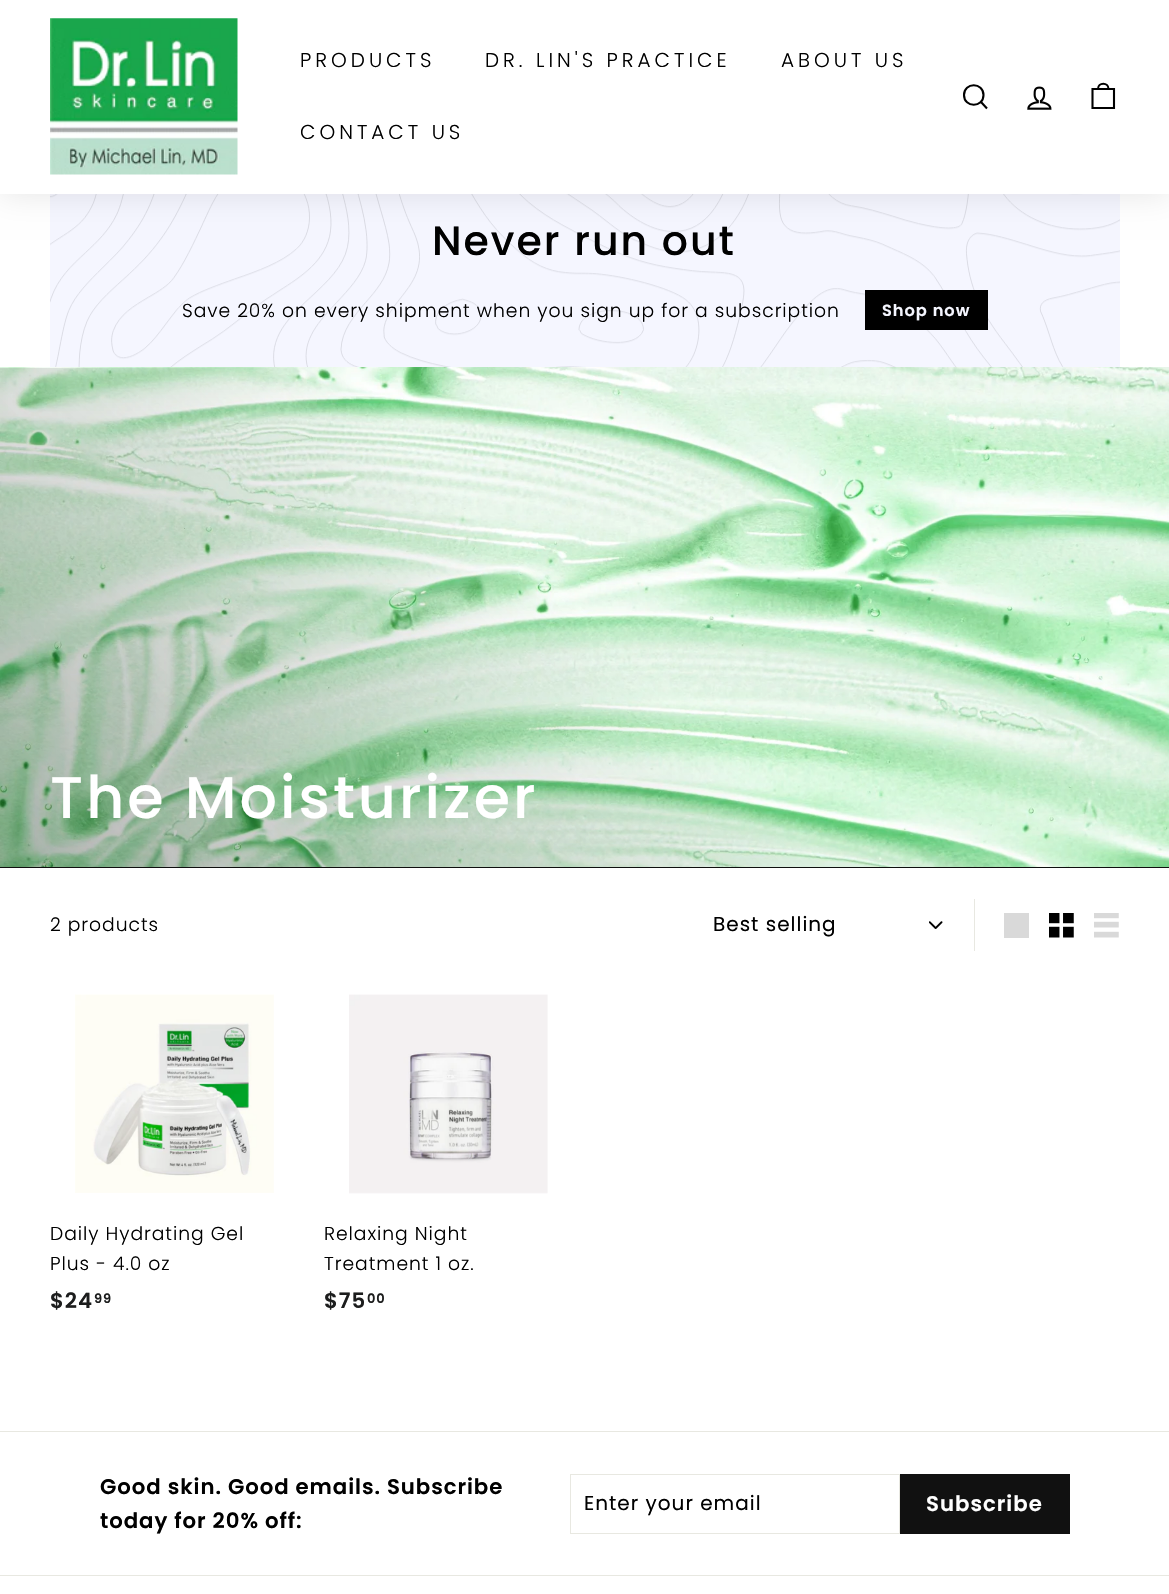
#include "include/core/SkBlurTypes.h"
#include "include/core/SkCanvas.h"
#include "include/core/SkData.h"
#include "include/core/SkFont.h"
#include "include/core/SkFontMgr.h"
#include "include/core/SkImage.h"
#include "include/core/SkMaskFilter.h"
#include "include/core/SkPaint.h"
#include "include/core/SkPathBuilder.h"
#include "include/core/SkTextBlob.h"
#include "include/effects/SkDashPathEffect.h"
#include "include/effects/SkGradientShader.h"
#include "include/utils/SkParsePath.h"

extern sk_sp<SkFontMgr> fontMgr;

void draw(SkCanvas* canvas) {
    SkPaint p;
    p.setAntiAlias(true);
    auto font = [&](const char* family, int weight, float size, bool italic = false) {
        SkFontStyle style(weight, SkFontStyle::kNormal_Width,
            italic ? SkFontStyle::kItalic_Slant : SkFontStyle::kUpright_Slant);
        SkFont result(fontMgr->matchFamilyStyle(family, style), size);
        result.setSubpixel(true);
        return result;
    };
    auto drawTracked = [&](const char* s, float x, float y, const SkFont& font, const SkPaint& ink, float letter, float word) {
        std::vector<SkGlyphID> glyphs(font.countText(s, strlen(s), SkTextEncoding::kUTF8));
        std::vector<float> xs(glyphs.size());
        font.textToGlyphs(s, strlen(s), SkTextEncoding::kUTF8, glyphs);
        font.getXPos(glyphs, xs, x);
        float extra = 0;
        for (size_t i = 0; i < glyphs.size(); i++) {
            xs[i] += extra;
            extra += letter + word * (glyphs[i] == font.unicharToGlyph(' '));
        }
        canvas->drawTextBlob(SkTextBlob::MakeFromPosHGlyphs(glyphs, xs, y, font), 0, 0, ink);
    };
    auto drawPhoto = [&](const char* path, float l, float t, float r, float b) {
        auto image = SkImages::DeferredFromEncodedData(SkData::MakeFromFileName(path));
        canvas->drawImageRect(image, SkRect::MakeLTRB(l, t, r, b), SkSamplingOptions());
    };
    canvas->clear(0xFFFFFFFF);
    p.setColor(0xFFF5F6FF);
    canvas->drawRect(SkRect::MakeLTRB(50, 194, 1120, 367), p);
    drawPhoto("media/3.png", 50, 194, 1120, 367);
    p.setColor(0x1A000000);
    p.setMaskFilter(SkMaskFilter::MakeBlur(kNormal_SkBlurStyle, 15.5f));
    canvas->drawRect(SkRect::MakeLTRB(0, 0, 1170, 194), p);
    p.setMaskFilter(nullptr);
    p.setColor(0xFFFFFFFF);
    canvas->drawRect(SkRect::MakeLTRB(0, 0, 1169, 194), p);
    drawPhoto("media/1.png", 50, 18, 238, 175);
    auto font1 = font("Poppins", 300, 20);
    p.setColor(0xFF000000);
    {
        const struct { const char* s; float x, y; } items[] = {
            {"PRODUCTS", 300, 67},
            {"DR. LIN'S PRACTICE", 485, 67},
            {"ABOUT US", 781, 67},
            {"CONTACT US", 300, 139},
        };
        for (auto [s, x, y] : items) {
            drawTracked(s, x, y, font1, p, 4, 0);
        }
    }
    p.setStyle(SkPaint::kStroke_Style);
    p.setStrokeWidth(2.1f);
    canvas->drawPath(SkPathBuilder().moveTo(983.5f, 95).cubicTo(983.5f, 108, 964, 108, 964, 95).cubicTo(964, 82, 983.5f, 82, 983.5f, 95).close().moveTo(987, 108.5f).lineTo(981, 102).detach(), p);
    drawPhoto("media/2.png", 1027, 86, 1052, 110);
    canvas->drawPath(SkPathBuilder().moveTo(1098, 89).cubicTo(1098, 82, 1108.5f, 82, 1108.5f, 89).moveTo(1092.5f, 89).lineTo(1114, 89).lineTo(1114, 108).lineTo(1092.5f, 108).close().detach(), p);
    auto font2 = font("Poppins", 500, 41);
    p.setStyle(SkPaint::kFill_Style);
    drawTracked("Never run out", 432, 255, font2, p, 2, 0);
    auto font3 = font("Poppins", 300, 18.75f);
    drawTracked("Save 20% on every shipment when you sign up for a subscription", 182, 317, font3, p, 0.95f, 0);
    canvas->drawRect(SkRect::MakeLTRB(865, 290, 988, 330), p);
    auto font4 = font("Poppins", 600, 16.25f);
    p.setColor(0xFFF5F6FF);
    drawTracked("Shop now", 882, 316, font4, p, 0.95f, 0);
    p.setColor(0xFF0F0F0F);
    canvas->drawRect(SkRect::MakeLTRB(0, 867, 1169, 868), p);
    drawPhoto("media/4.png", 0, 367, 1169, 867);
    auto font5 = font("Poppins", 500, 58.75f);
    p.setColor(0xFFFFFFFF);
    drawTracked("The Moisturizer", 50, 818, font5, p, 3, 0);
    p.setColor(0xFF000000);
    drawTracked("2 products", 50, 931, font3, p, 0.95f, 0);
    p.setColor(0xFFE8E8E1);
    canvas->drawRect(SkRect::MakeLTRB(974, 899, 975, 951), p);
    drawPhoto("media/5.png", 929, 921, 943, 929);
    auto font6 = font("Poppins", 400, 20);
    p.setColor(0xFF000000);
    drawTracked("Best selling", 713, 931, font6, p, 1, 0);
    p.setColor(0xFFD9D9D9);
    canvas->drawRect(SkRect::MakeLTRB(1004, 913, 1029, 938), p);
    drawPhoto("media/6.png", 1049, 913, 1074, 938);
    drawPhoto("media/7.png", 1094, 913, 1119, 938);
    drawPhoto("media/8.png", 75, 994, 274, 1193);
    p.setColor(0xFF000000);
    drawTracked("Daily Hydrating Gel", 50, 1240, font3, p, 0.95f, 0);
    drawTracked("Plus - 4.0 oz", 50, 1270, font3, p, 0.95f, 0);
    auto font7 = font("Poppins", 600, 21.25f);
    p.setColor(0xFF1C1D1D);
    drawTracked("$24", 50, 1308, font7, p, 0.95f, 0);
    auto font8 = font("Poppins", 600, 13);
    drawTracked("99", 94, 1303, font8, p, 0.95f, 0);
    drawPhoto("media/9.png", 349, 994, 548, 1194);
    p.setColor(0xFF000000);
    drawTracked("Relaxing Night", 324, 1240, font3, p, 0.95f, 0);
    drawTracked("Treatment 1 oz.", 324, 1270, font3, p, 0.95f, 0);
    p.setColor(0xFF1C1D1D);
    drawTracked("$75", 324, 1308, font7, p, 0.95f, 0);
    drawTracked("00", 367, 1303, font8, p, 0.95f, 0);
    p.setColor(0xFFE8E8E1);
    canvas->drawRect(SkRect::MakeLTRB(0, 1431, 1169, 1432), p);
    p.setColor(0xFF000000);
    drawTracked("Good skin. Good emails. Subscribe", 100, 1494, font7, p, 0.95f, 0);
    drawTracked("today for 20% off:", 100, 1528, font7, p, 0.95f, 0);
    p.setStyle(SkPaint::kStroke_Style);
    p.setStrokeWidth(1);
    p.setColor(0xFFE8E8E1);
    canvas->drawRect(SkRect::MakeLTRB(570.5f, 1474.5f, 899.5f, 1533.5f), p);
    p.setStyle(SkPaint::kFill_Style);
    p.setColor(0xFF000000);
    drawTracked("Enter your email", 584, 1510, font6, p, 1, 0);
    p.setColor(0xFF111111);
    canvas->drawRect(SkRect::MakeLTRB(900, 1474, 1070, 1534), p);
    p.setColor(0xFFFFFFFF);
    drawTracked("Subscribe", 926, 1511, font7, p, 1, 0);
    p.setColor(0xFFE8E8E1);
    canvas->drawRect(SkRect::MakeLTRB(0, 1575, 1169, 1576), p);
}
